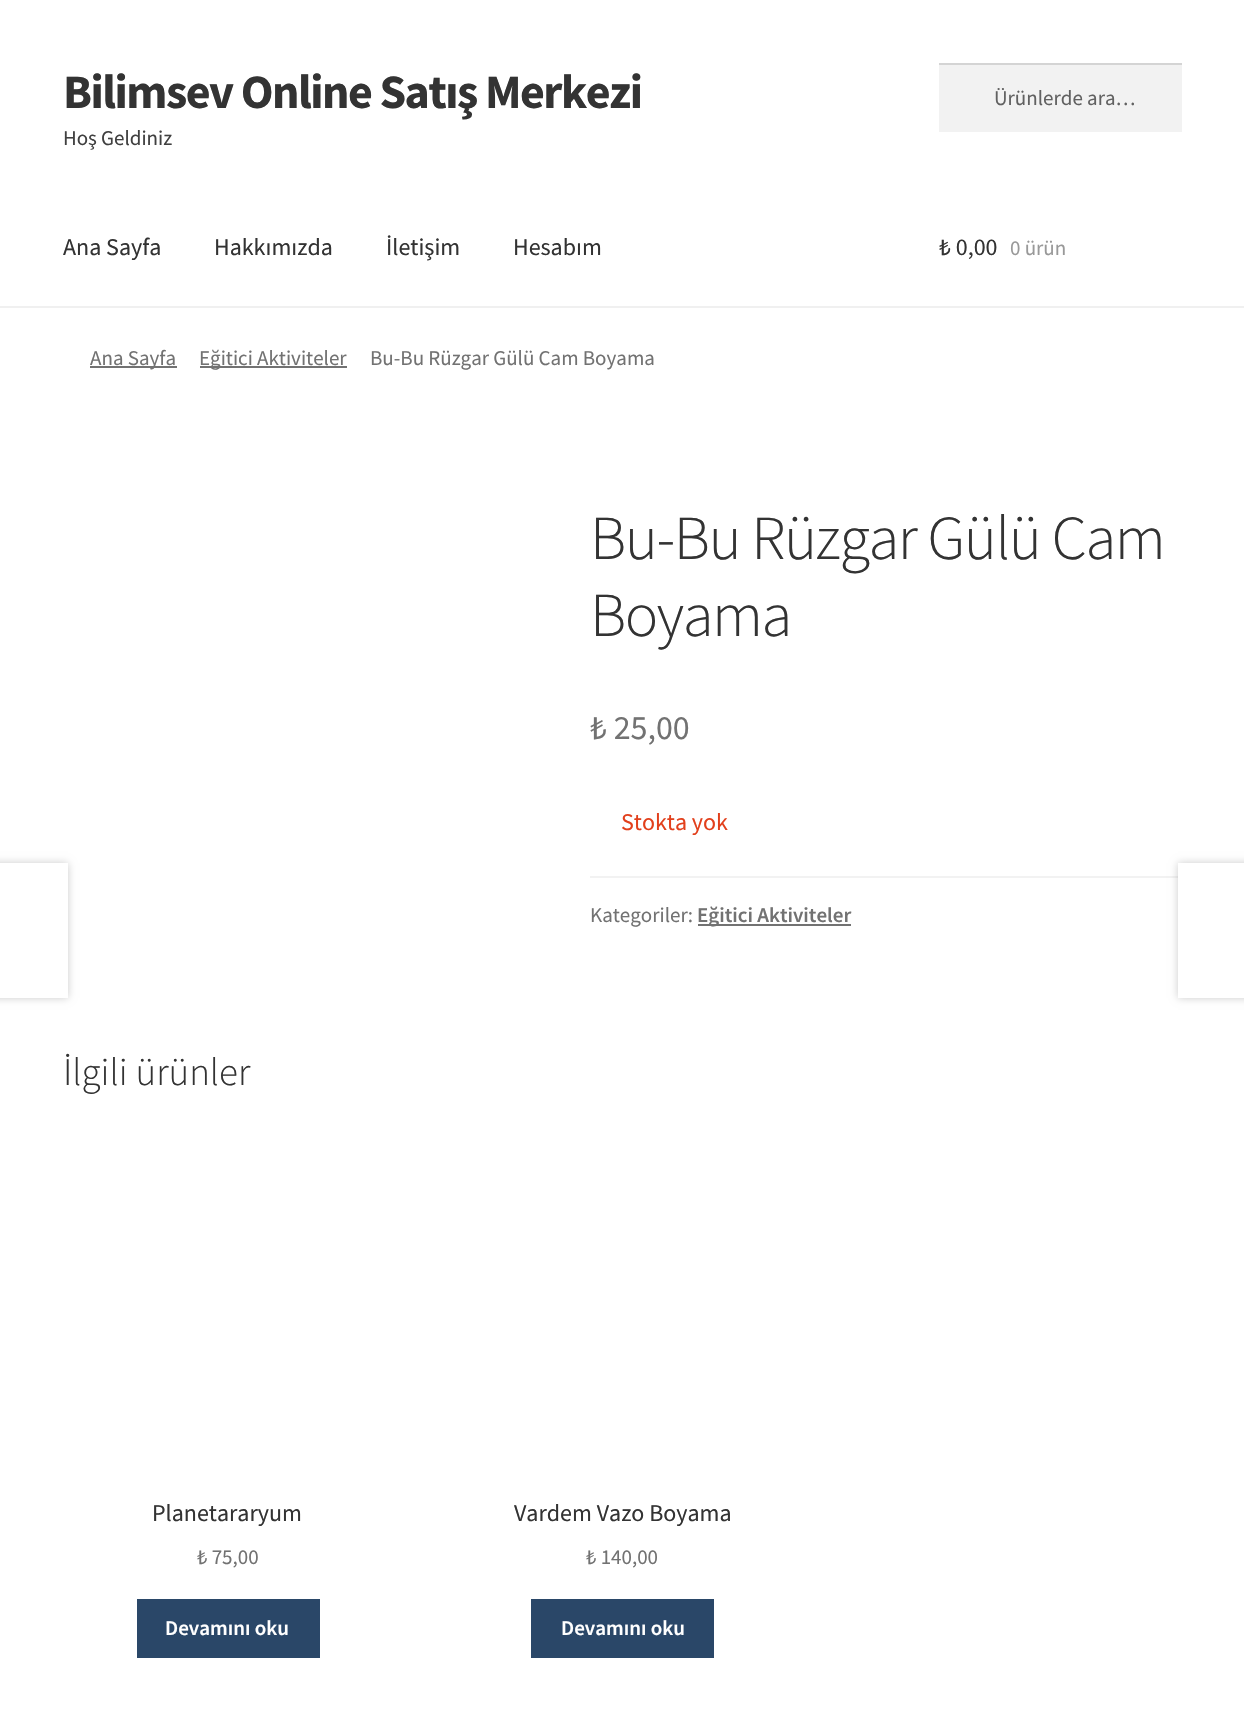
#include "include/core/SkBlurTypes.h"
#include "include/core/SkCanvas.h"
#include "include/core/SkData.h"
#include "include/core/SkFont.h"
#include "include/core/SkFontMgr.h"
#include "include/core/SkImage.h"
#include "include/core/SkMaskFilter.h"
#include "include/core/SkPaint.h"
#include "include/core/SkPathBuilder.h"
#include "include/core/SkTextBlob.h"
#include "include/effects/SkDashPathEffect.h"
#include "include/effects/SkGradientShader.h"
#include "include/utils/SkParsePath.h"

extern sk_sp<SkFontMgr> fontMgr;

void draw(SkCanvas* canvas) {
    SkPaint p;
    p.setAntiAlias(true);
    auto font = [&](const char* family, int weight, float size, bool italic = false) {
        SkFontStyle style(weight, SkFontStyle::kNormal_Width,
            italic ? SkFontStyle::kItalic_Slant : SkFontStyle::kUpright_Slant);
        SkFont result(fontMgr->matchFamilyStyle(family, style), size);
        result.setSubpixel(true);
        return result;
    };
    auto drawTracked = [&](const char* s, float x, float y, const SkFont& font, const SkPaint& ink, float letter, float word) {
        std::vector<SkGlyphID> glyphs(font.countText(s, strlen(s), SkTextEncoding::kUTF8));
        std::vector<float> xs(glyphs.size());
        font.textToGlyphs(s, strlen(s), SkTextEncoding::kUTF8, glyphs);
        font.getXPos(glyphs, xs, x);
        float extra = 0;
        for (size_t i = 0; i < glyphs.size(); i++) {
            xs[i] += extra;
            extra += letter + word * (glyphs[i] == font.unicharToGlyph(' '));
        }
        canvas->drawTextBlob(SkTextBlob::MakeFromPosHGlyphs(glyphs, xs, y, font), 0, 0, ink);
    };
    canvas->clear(0xFFFFFFFF);
    p.setColor(0xFFF0F0F0);
    canvas->drawRect(SkRect::MakeLTRB(0, 306, 1244, 308), p);
    auto font1 = font("Source Sans Pro", 700, 48);
    p.setColor(0xFF333333);
    drawTracked("Bilimsev Online Satış Merkezi", 63, 108, font1, p, -1.5f, 0);
    auto font2 = font("Source Sans Pro", 400, 21);
    p.setColor(0xFF404040);
    canvas->drawString("Hoş Geldiniz", 63, 145, font2, p);
    p.setColor(0xFFF2F2F2);
    canvas->drawRect(SkRect::MakeLTRB(939, 65, 1182, 132), p);
    p.setColor(0xFFD4D4D4);
    canvas->drawRect(SkRect::MakeLTRB(939, 63, 1182, 65), p);
    p.setColor(0xFF616161);
    canvas->drawString("Ürünlerde ara…", 994, 105, font2, p);
    auto font3 = font("Source Sans Pro", 400, 24);
    p.setColor(0xFF333333);
    {
        const struct { const char* s; float x, y; } items[] = {
            {"Ana Sayfa", 63, 255},
            {"Hakkımızda", 214, 255},
            {"İletişim", 386, 255},
            {"Hesabım", 513, 255},
            {"₺ 0,00", 939, 255},
        };
        for (auto [s, x, y] : items) {
            canvas->drawString(s, x, y, font3, p);
        }
    }
    p.setColor(0xFF999999);
    canvas->drawString("0 ürün", 1010, 255, font2, p);
    p.setColor(0xFF727272);
    canvas->drawRect(SkRect::MakeLTRB(90, 366, 177, 368), p);
    canvas->drawString("Ana Sayfa", 90, 365, font2, p);
    canvas->drawRect(SkRect::MakeLTRB(200, 366, 347, 368), p);
    canvas->drawString("Eğitici Aktiviteler", 199, 365, font2, p);
    canvas->drawString("Bu-Bu Rüzgar Gülü Cam Boyama", 370, 365, font2, p);
    auto font4 = font("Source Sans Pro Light", 300, 62.75f);
    p.setColor(0xFF333333);
    drawTracked("Bu-Bu Rüzgar Gülü Cam", 590, 559, font4, p, -1.5f, 0);
    drawTracked("Boyama", 590, 636, font4, p, -1.5f, 0);
    auto font5 = font("Source Sans Pro", 400, 34);
    p.setColor(0xFF727272);
    canvas->drawString("₺ 25,00", 590, 739, font5, p);
    p.setColor(0xFFE2401C);
    canvas->drawString("Stokta yok", 621, 830, font3, p);
    p.setColor(0xFFF2F2F2);
    canvas->drawRect(SkRect::MakeLTRB(590, 876, 1182, 878), p);
    p.setColor(0xFF727272);
    canvas->drawString("Kategoriler:", 590, 922, font2, p);
    canvas->drawRect(SkRect::MakeLTRB(698, 924, 851, 926), p);
    auto font6 = font("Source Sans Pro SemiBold", 600, 21);
    canvas->drawString("Eğitici Aktiviteler", 697, 922, font6, p);
    p.setColor(0x33000000);
    p.setMaskFilter(SkMaskFilter::MakeBlur(kNormal_SkBlurStyle, 4));
    canvas->drawRect(SkRect::MakeLTRB(-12, 863, 68, 998), p);
    p.setMaskFilter(nullptr);
    p.setColor(0xFFFFFFFF);
    canvas->drawRect(SkRect::MakeLTRB(0, 863, 68, 998), p);
    p.setColor(0x33000000);
    p.setMaskFilter(SkMaskFilter::MakeBlur(kNormal_SkBlurStyle, 4));
    canvas->drawRect(SkRect::MakeLTRB(1178, 863, 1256, 998), p);
    p.setMaskFilter(nullptr);
    p.setColor(0xFFFFFFFF);
    canvas->drawRect(SkRect::MakeLTRB(1178, 863, 1244, 998), p);
    auto font7 = font("Source Sans Pro Light", 300, 39);
    p.setColor(0xFF333333);
    canvas->drawString("İlgili ürünler", 63, 1085, font7, p);
    canvas->drawString("Planetararyum", 152, 1521, font3, p);
    p.setColor(0xFF727272);
    canvas->drawString("₺ 75,00", 197, 1564, font2, p);
    p.setColor(0xFF2A4768);
    canvas->drawRect(SkRect::MakeLTRB(137, 1599, 320, 1658), p);
    p.setColor(0xFFFFFFFF);
    canvas->drawString("Devamını oku", 165, 1635, font6, p);
    p.setColor(0xFF333333);
    canvas->drawString("Vardem Vazo Boyama", 514, 1521, font3, p);
    p.setColor(0xFF727272);
    canvas->drawString("₺ 140,00", 586, 1564, font2, p);
    p.setColor(0xFF2A4768);
    canvas->drawRect(SkRect::MakeLTRB(531, 1599, 714, 1658), p);
    p.setColor(0xFFFFFFFF);
    canvas->drawString("Devamını oku", 561, 1635, font6, p);
}
